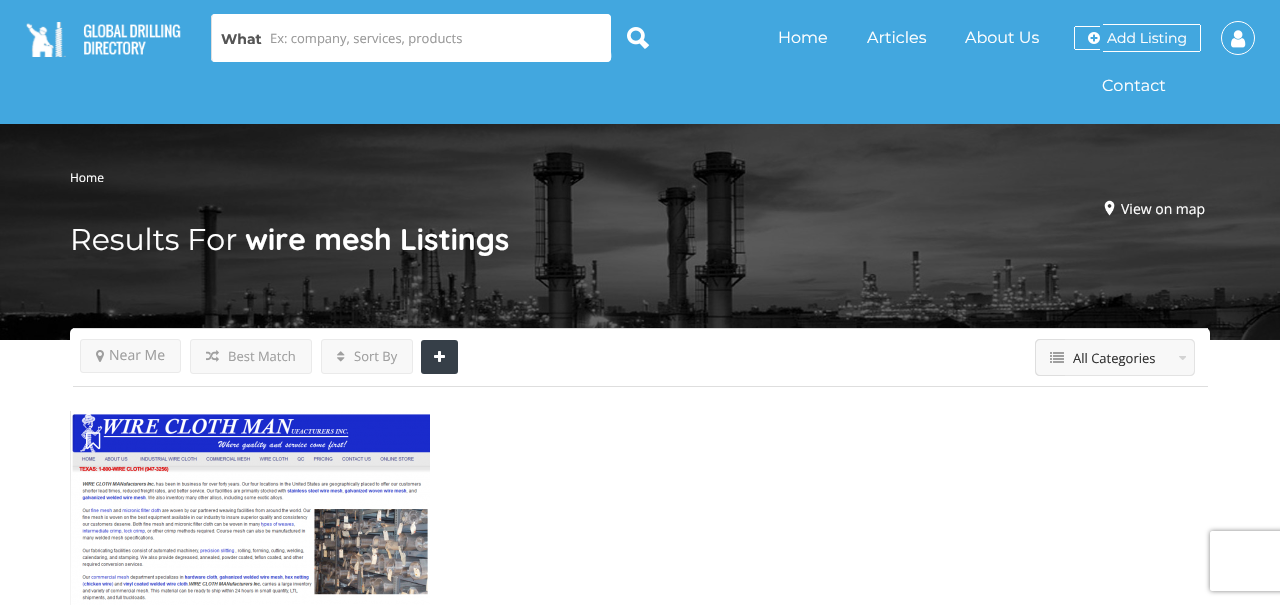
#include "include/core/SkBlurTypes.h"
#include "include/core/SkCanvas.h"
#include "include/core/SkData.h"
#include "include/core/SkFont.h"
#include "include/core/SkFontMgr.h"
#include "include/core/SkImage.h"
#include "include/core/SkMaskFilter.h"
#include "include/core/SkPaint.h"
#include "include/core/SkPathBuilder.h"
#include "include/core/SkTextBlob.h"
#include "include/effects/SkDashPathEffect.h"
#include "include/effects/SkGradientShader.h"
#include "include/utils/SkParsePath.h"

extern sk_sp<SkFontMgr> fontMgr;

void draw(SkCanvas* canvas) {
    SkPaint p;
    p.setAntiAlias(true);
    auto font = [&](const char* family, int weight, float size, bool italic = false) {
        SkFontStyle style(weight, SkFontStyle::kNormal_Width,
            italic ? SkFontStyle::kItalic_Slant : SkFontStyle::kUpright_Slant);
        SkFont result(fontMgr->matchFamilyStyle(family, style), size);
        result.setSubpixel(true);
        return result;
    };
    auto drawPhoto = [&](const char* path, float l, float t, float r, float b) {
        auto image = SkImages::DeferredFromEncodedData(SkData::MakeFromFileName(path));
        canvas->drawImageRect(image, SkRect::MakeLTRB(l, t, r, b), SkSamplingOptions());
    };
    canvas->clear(0xFFFFFFFF);
    p.setColor(0xFF42A7DF);
    canvas->drawRect(SkRect::MakeLTRB(0, 0, 1280, 124), p);
    drawPhoto("media/1.png", 26, 22, 181, 57);
    p.setColor(0xFFFFFFFF);
    canvas->drawRoundRect(SkRect::MakeLTRB(211, 14, 611, 62), 4, 4, p);
    p.setStyle(SkPaint::kStroke_Style);
    p.setStrokeWidth(1);
    canvas->drawPath(SkPathBuilder().moveTo(212.5f, 15.5f).lineTo(214.5f, 14.5f).lineTo(607, 14.5f).cubicTo(608.5f, 14.5f, 609.5f, 15.5f, 610, 16.5f).lineTo(610.5f, 51.5f).cubicTo(610.5f, 53.5f, 612, 60, 608.5f, 61).lineTo(214.5f, 61.5f).lineTo(212.5f, 60.5f).detach(), p);
    p.setColor(0xFFDEDEDE);
    canvas->drawPath(SkPathBuilder().moveTo(212.5f, 60.5f).cubicTo(212, 60, 211.5f, 59, 211.5f, 58).lineTo(211.5f, 18).cubicTo(211.5f, 17, 212, 16, 212.5f, 15.5f).detach(), p);
    auto font1 = font("Montserrat", 700, 14);
    p.setStyle(SkPaint::kFill_Style);
    p.setColor(0xFF555555);
    canvas->drawString("What", 221, 44, font1, p);
    auto font2 = font("Open Sans", 400, 13);
    p.setColor(0xFF999999);
    canvas->drawString("Ex: company, services, products", 270, 43, font2, p);
    drawPhoto("media/2.png", 627, 27, 650, 49);
    auto font3 = font("Montserrat", 400, 16);
    p.setColor(0xFFFFFFFF);
    {
        const struct { const char* s; float x, y; } items[] = {
            {"Home", 778, 43},
            {"Articles", 867, 43},
            {"About Us", 965, 43},
            {"Contact", 1102, 91},
        };
        for (auto [s, x, y] : items) {
            canvas->drawString(s, x, y, font3, p);
        }
    }
    p.setStyle(SkPaint::kStroke_Style);
    canvas->drawCircle(1238, 38, 16.5f, p);
    drawPhoto("media/3.png", 1231, 30, 1246, 48);
    p.setStyle(SkPaint::kFill_Style);
    {
        const struct { float l, t, r, b; SkColor color; } items[] = {
            {1075, 26, 1100, 27, 0xFFFFFFFF},
            {1075, 49, 1100, 50, 0xFFFFFFFF},
            {1074, 27, 1075, 49, 0xFFFFFFFF},
            {1103, 24, 1200, 25, 0xFFFFFFFF},
            {1200, 25, 1201, 51, 0xFFFFFFFF},
            {1103, 51, 1200, 52, 0xFFFFFFFF},
        };
        for (auto [l, t, r, b, color] : items) {
            p.setColor(color);
            canvas->drawRect(SkRect::MakeLTRB(l, t, r, b), p);
        }
    }
    drawPhoto("media/4.png", 1088, 32, 1100, 44);
    auto font4 = font("Montserrat", 400, 14);
    canvas->drawString("Add Listing", 1107, 43, font4, p);
    drawPhoto("media/5.png", 0, 124, 1280, 340);
    auto font5 = font("Open Sans", 400, 12);
    canvas->drawString("Home", 70, 182, font5, p);
    drawPhoto("media/6.png", 1104, 200, 1115, 216);
    auto font6 = font("Open Sans", 400, 14);
    canvas->drawString("View on map", 1121, 214, font6, p);
    auto font7 = font("Montserrat", 400, 30);
    canvas->drawString("Results For", 70, 250, font7, p);
    auto font8 = font("Quicksand", 700, 30);
    canvas->drawString("wire mesh", 245, 250, font8, p);
    canvas->drawString("Listings", 400, 250, font8, p);
    canvas->drawRoundRect(SkRect::MakeLTRB(70, 328, 1210, 387), 5, 5, p);
    p.setColor(0xFFDEDEDE);
    canvas->drawRect(SkRect::MakeLTRB(73, 328, 1208, 329), p);
    canvas->drawRect(SkRect::MakeLTRB(73, 386, 1208, 387), p);
    p.setColor(0xFFF8F8F8);
    canvas->drawRoundRect(SkRect::MakeLTRB(80.5f, 339.5f, 180.5f, 372.5f), 2.5f, 2.5f, p);
    p.setStyle(SkPaint::kStroke_Style);
    p.setColor(0xFFEAEAEA);
    canvas->drawRoundRect(SkRect::MakeLTRB(80.5f, 339.5f, 180.5f, 372.5f), 2.5f, 2.5f, p);
    drawPhoto("media/7.png", 96, 350, 104, 362);
    p.setStyle(SkPaint::kFill_Style);
    p.setColor(0xFF9F9F9F);
    canvas->drawString("Near Me", 109, 360, font6, p);
    p.setColor(0xFFF8F8F8);
    canvas->drawRoundRect(SkRect::MakeLTRB(190.5f, 339.5f, 311.5f, 373.5f), 2.5f, 2.5f, p);
    p.setStyle(SkPaint::kStroke_Style);
    p.setColor(0xFFEAEAEA);
    canvas->drawRoundRect(SkRect::MakeLTRB(190.5f, 339.5f, 311.5f, 373.5f), 2.5f, 2.5f, p);
    drawPhoto("media/8.png", 206, 350, 219, 362);
    p.setStyle(SkPaint::kFill_Style);
    p.setColor(0xFF9F9F9F);
    canvas->drawString("Best Match", 228, 361, font2, p);
    p.setColor(0xFFF8F8F8);
    canvas->drawRoundRect(SkRect::MakeLTRB(321.5f, 339.5f, 412.5f, 373.5f), 2.5f, 2.5f, p);
    p.setStyle(SkPaint::kStroke_Style);
    p.setColor(0xFFEAEAEA);
    canvas->drawRoundRect(SkRect::MakeLTRB(321.5f, 339.5f, 412.5f, 373.5f), 2.5f, 2.5f, p);
    drawPhoto("media/9.png", 337, 351, 345, 362);
    p.setStyle(SkPaint::kFill_Style);
    p.setColor(0xFF9F9F9F);
    canvas->drawString("Sort By", 354, 361, font2, p);
    p.setColor(0xFF363F48);
    canvas->drawRoundRect(SkRect::MakeLTRB(421, 340, 458, 374), 3, 3, p);
    drawPhoto("media/10.png", 434, 351, 445, 362);
    p.setColor(0xFFF8F8F8);
    canvas->drawPath(SkPathBuilder().moveTo(1040, 339).lineTo(1065, 339).lineTo(1065, 376).lineTo(1040, 376).cubicTo(1037, 376, 1035, 374, 1035, 371).lineTo(1035, 344).cubicTo(1035, 341, 1037, 339, 1040, 339).close().detach(), p);
    p.setColor(0xFFDEDEDE);
    canvas->drawPath(SkPathBuilder(SkPathFillType::kEvenOdd).moveTo(1040, 339).lineTo(1065, 339).lineTo(1065, 376).lineTo(1040, 376).cubicTo(1037, 376, 1035, 374, 1035, 371).lineTo(1035, 344).cubicTo(1035, 341, 1037, 339, 1040, 339).close().moveTo(1040, 340).lineTo(1065, 340).lineTo(1065, 375).lineTo(1040, 375).cubicTo(1038, 375, 1036, 373, 1036, 371).lineTo(1036, 344).cubicTo(1036, 342, 1038, 340, 1040, 340).close().detach(), p);
    drawPhoto("media/11.png", 1050, 352, 1064, 363);
    p.setColor(0xFFF8F8F8);
    canvas->drawPath(SkPathBuilder().moveTo(1065, 339).lineTo(1190, 339).cubicTo(1193, 339, 1195, 341, 1195, 344).lineTo(1195, 371).cubicTo(1195, 374, 1193, 376, 1190, 376).lineTo(1065, 376).close().detach(), p);
    p.setColor(0xFFE3E3E3);
    canvas->drawPath(SkPathBuilder(SkPathFillType::kEvenOdd).moveTo(1065, 339).lineTo(1190, 339).cubicTo(1193, 339, 1195, 341, 1195, 344).lineTo(1195, 371).cubicTo(1195, 374, 1193, 376, 1190, 376).lineTo(1065, 376).close().moveTo(1065, 340).lineTo(1190, 340).cubicTo(1192, 340, 1194, 342, 1194, 344).lineTo(1194, 371).cubicTo(1194, 373, 1192, 375, 1190, 375).lineTo(1065, 375).close().detach(), p);
    p.setColor(0xFF333333);
    canvas->drawString("All Categories", 1073, 363, font2, p);
    drawPhoto("media/12.png", 1179, 356, 1186, 360);
    drawPhoto("media/13.png", 70, 411, 430, 605);
    drawPhoto("media/14.png", 86, 432, 101, 450);
    canvas->save();
    canvas->clipPath(SkPathBuilder(SkPathFillType::kEvenOdd).moveTo(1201, 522).lineTo(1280, 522).lineTo(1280, 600).lineTo(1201, 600).close().moveTo(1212, 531).lineTo(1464, 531).cubicTo(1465, 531, 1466, 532, 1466, 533).lineTo(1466, 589).cubicTo(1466, 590, 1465, 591, 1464, 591).lineTo(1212, 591).cubicTo(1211, 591, 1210, 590, 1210, 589).lineTo(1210, 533).cubicTo(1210, 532, 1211, 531, 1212, 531).close().detach(), true);
    p.setColor(0xFF808080);
    p.setMaskFilter(SkMaskFilter::MakeBlur(kNormal_SkBlurStyle, 2.5f));
    canvas->drawRoundRect(SkRect::MakeLTRB(1210, 531, 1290, 591), 2, 2, p);
    p.setMaskFilter(nullptr);
    canvas->restore();
}
